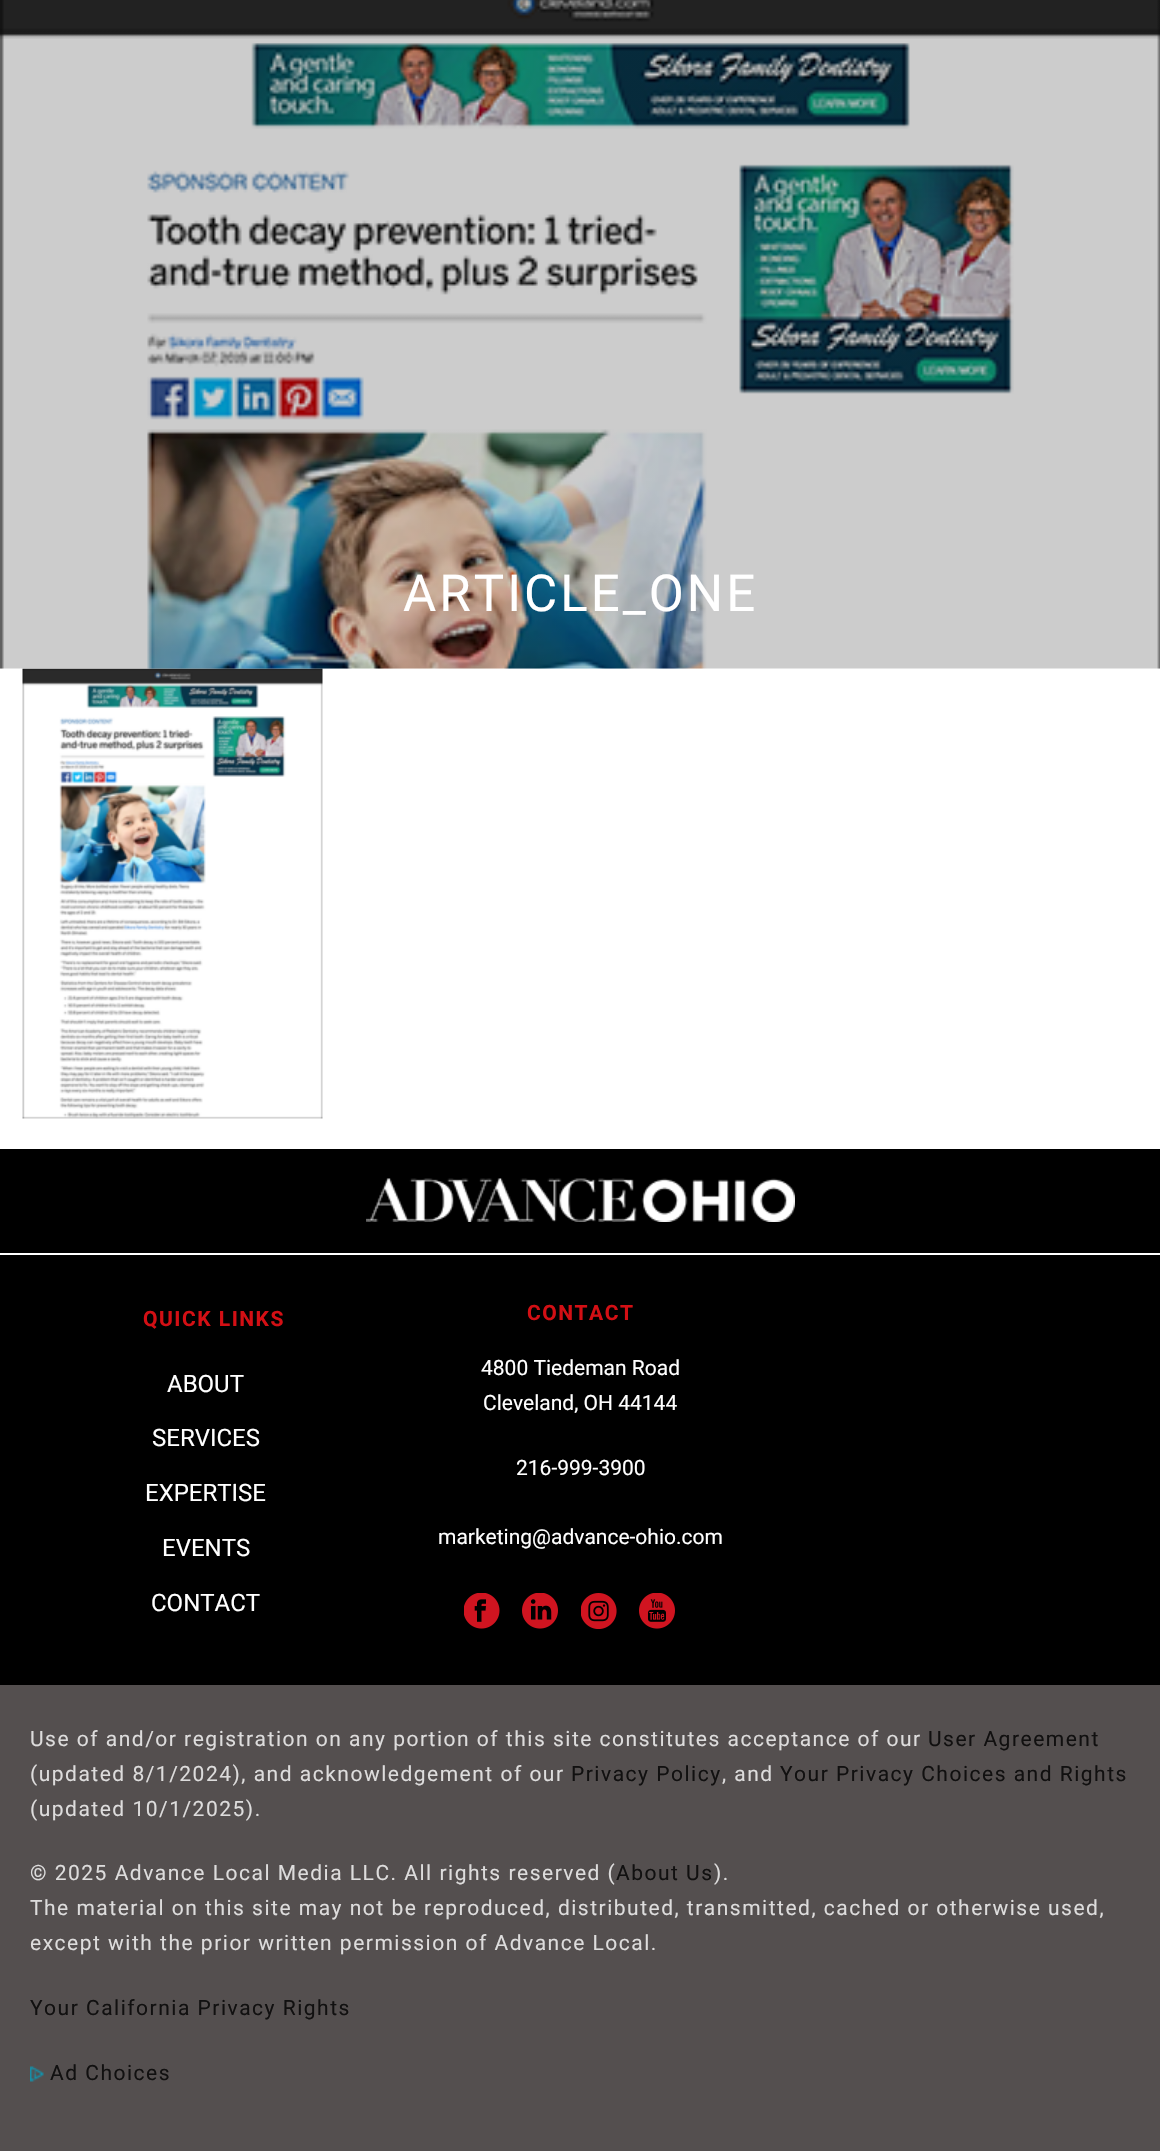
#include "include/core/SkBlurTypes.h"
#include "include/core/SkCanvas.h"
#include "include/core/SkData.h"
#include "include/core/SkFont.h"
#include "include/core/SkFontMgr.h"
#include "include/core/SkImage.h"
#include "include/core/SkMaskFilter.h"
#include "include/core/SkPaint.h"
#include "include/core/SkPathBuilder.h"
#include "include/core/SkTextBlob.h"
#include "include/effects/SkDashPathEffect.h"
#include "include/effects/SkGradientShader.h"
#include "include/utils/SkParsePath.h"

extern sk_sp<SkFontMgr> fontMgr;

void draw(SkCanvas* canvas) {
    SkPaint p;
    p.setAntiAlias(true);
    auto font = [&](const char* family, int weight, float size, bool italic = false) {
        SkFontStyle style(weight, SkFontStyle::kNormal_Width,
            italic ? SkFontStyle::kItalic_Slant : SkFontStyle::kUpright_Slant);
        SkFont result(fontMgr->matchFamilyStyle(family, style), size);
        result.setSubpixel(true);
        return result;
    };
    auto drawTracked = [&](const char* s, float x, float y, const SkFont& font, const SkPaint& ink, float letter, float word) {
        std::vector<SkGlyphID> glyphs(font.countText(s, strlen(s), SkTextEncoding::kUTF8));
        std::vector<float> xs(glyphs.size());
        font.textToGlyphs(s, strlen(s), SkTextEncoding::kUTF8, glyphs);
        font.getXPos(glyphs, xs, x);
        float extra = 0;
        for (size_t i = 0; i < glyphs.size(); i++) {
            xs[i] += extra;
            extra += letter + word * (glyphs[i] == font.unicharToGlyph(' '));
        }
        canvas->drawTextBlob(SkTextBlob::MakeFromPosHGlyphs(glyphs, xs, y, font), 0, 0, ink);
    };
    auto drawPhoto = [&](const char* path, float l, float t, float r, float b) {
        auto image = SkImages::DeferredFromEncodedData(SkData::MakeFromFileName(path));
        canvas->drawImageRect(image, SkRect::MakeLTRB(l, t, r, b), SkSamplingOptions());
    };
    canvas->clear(0xFFFFFFFF);
    drawPhoto("media/2.png", 22, 668, 323, 1119);
    drawPhoto("media/1.png", 0, 0, 1160, 669);
    auto font1 = font("Roboto", 400, 51);
    p.setColor(0xFFFFFFFF);
    drawTracked("ARTICLE_ONE", 403, 611, font1, p, 3, 0);
    p.setColor(0xFF000000);
    canvas->drawRect(SkRect::MakeLTRB(0, 1149, 1160, 1685), p);
    drawPhoto("media/3.png", 366, 1178, 795, 1222);
    p.setColor(0xFFFFFFFF);
    canvas->drawRect(SkRect::MakeLTRB(0, 1253, 1160, 1255), p);
    auto font2 = font("Roboto", 700, 21);
    p.setColor(0xFFD30F14);
    drawTracked("QUICK LINKS", 143, 1326, font2, p, 1.5f, 0);
    auto font3 = font("Roboto", 400, 24);
    p.setColor(0xFFFFFFFF);
    {
        const struct { const char* s; float x, y; } items[] = {
            {"ABOUT", 167, 1392},
            {"SERVICES", 152, 1446},
            {"EXPERTISE", 145, 1501},
            {"EVENTS", 162, 1556},
            {"CONTACT", 151, 1611},
        };
        for (auto [s, x, y] : items) {
            canvas->drawString(s, x, y, font3, p);
        }
    }
    p.setColor(0xFFD30F14);
    drawTracked("CONTACT", 527, 1320, font2, p, 1.5f, 0);
    auto font4 = font("Roboto", 400, 21);
    p.setColor(0xFFFFFFFF);
    {
        const struct { const char* s; float x, y; } items[] = {
            {"4800 Tiedeman Road", 481, 1375},
            {"Cleveland, OH 44144", 483, 1410},
            {"216-999-3900", 516, 1475},
            {"marketing@advance-ohio.com", 438, 1544},
        };
        for (auto [s, x, y] : items) {
            canvas->drawString(s, x, y, font4, p);
        }
    }
    drawPhoto("media/4.png", 464, 1593, 500, 1629);
    drawPhoto("media/5.png", 522, 1593, 558, 1629);
    drawPhoto("media/6.png", 581, 1593, 617, 1629);
    drawPhoto("media/7.png", 639, 1593, 675, 1629);
    p.setColor(0xFF544F4F);
    canvas->drawRect(SkRect::MakeLTRB(0, 1685, 1160, 2151), p);
    p.setColor(0xFFDDDCDC);
    drawTracked("Use of and/or registration on any portion of this site constitutes acceptance of our", 30, 1746, font4, p, 1.5f, 0);
    p.setColor(0xFF111010);
    drawTracked("User Agreement", 928, 1746, font4, p, 1.5f, 0);
    p.setColor(0xFFDDDCDC);
    drawTracked("(updated 8/1/2024), and acknowledgement of our", 30, 1781, font4, p, 1.5f, 0);
    p.setColor(0xFF111010);
    drawTracked("Privacy Policy", 571, 1781, font4, p, 1.5f, 0);
    p.setColor(0xFFDDDCDC);
    drawTracked(", and", 722, 1781, font4, p, 1.5f, 0);
    p.setColor(0xFF111010);
    drawTracked("Your Privacy Choices and Rights", 780, 1781, font4, p, 1.5f, 0);
    p.setColor(0xFFDDDCDC);
    drawTracked("(updated 10/1/2025).", 30, 1816, font4, p, 1.5f, 0);
    drawTracked("© 2025 Advance Local Media LLC. All rights reserved (", 30, 1880, font4, p, 1.5f, 0);
    p.setColor(0xFF111010);
    drawTracked("About Us", 616, 1880, font4, p, 1.5f, 0);
    p.setColor(0xFFDDDCDC);
    {
        const struct { const char* s; float x, y; } items[] = {
            {").", 714, 1880},
            {"The material on this site may not be reproduced, distributed, transmitted, cached or otherwise used,", 30, 1915},
            {"except with the prior written permission of Advance Local.", 30, 1950},
        };
        for (auto [s, x, y] : items) {
            drawTracked(s, x, y, font4, p, 1.5f, 0);
        }
    }
    p.setColor(0xFF111010);
    drawTracked("Your California Privacy Rights", 30, 2015, font4, p, 1.5f, 0);
    drawPhoto("media/8.png", 30, 2066, 44, 2082);
    drawTracked("Ad Choices", 50, 2080, font4, p, 1.5f, 0);
}
